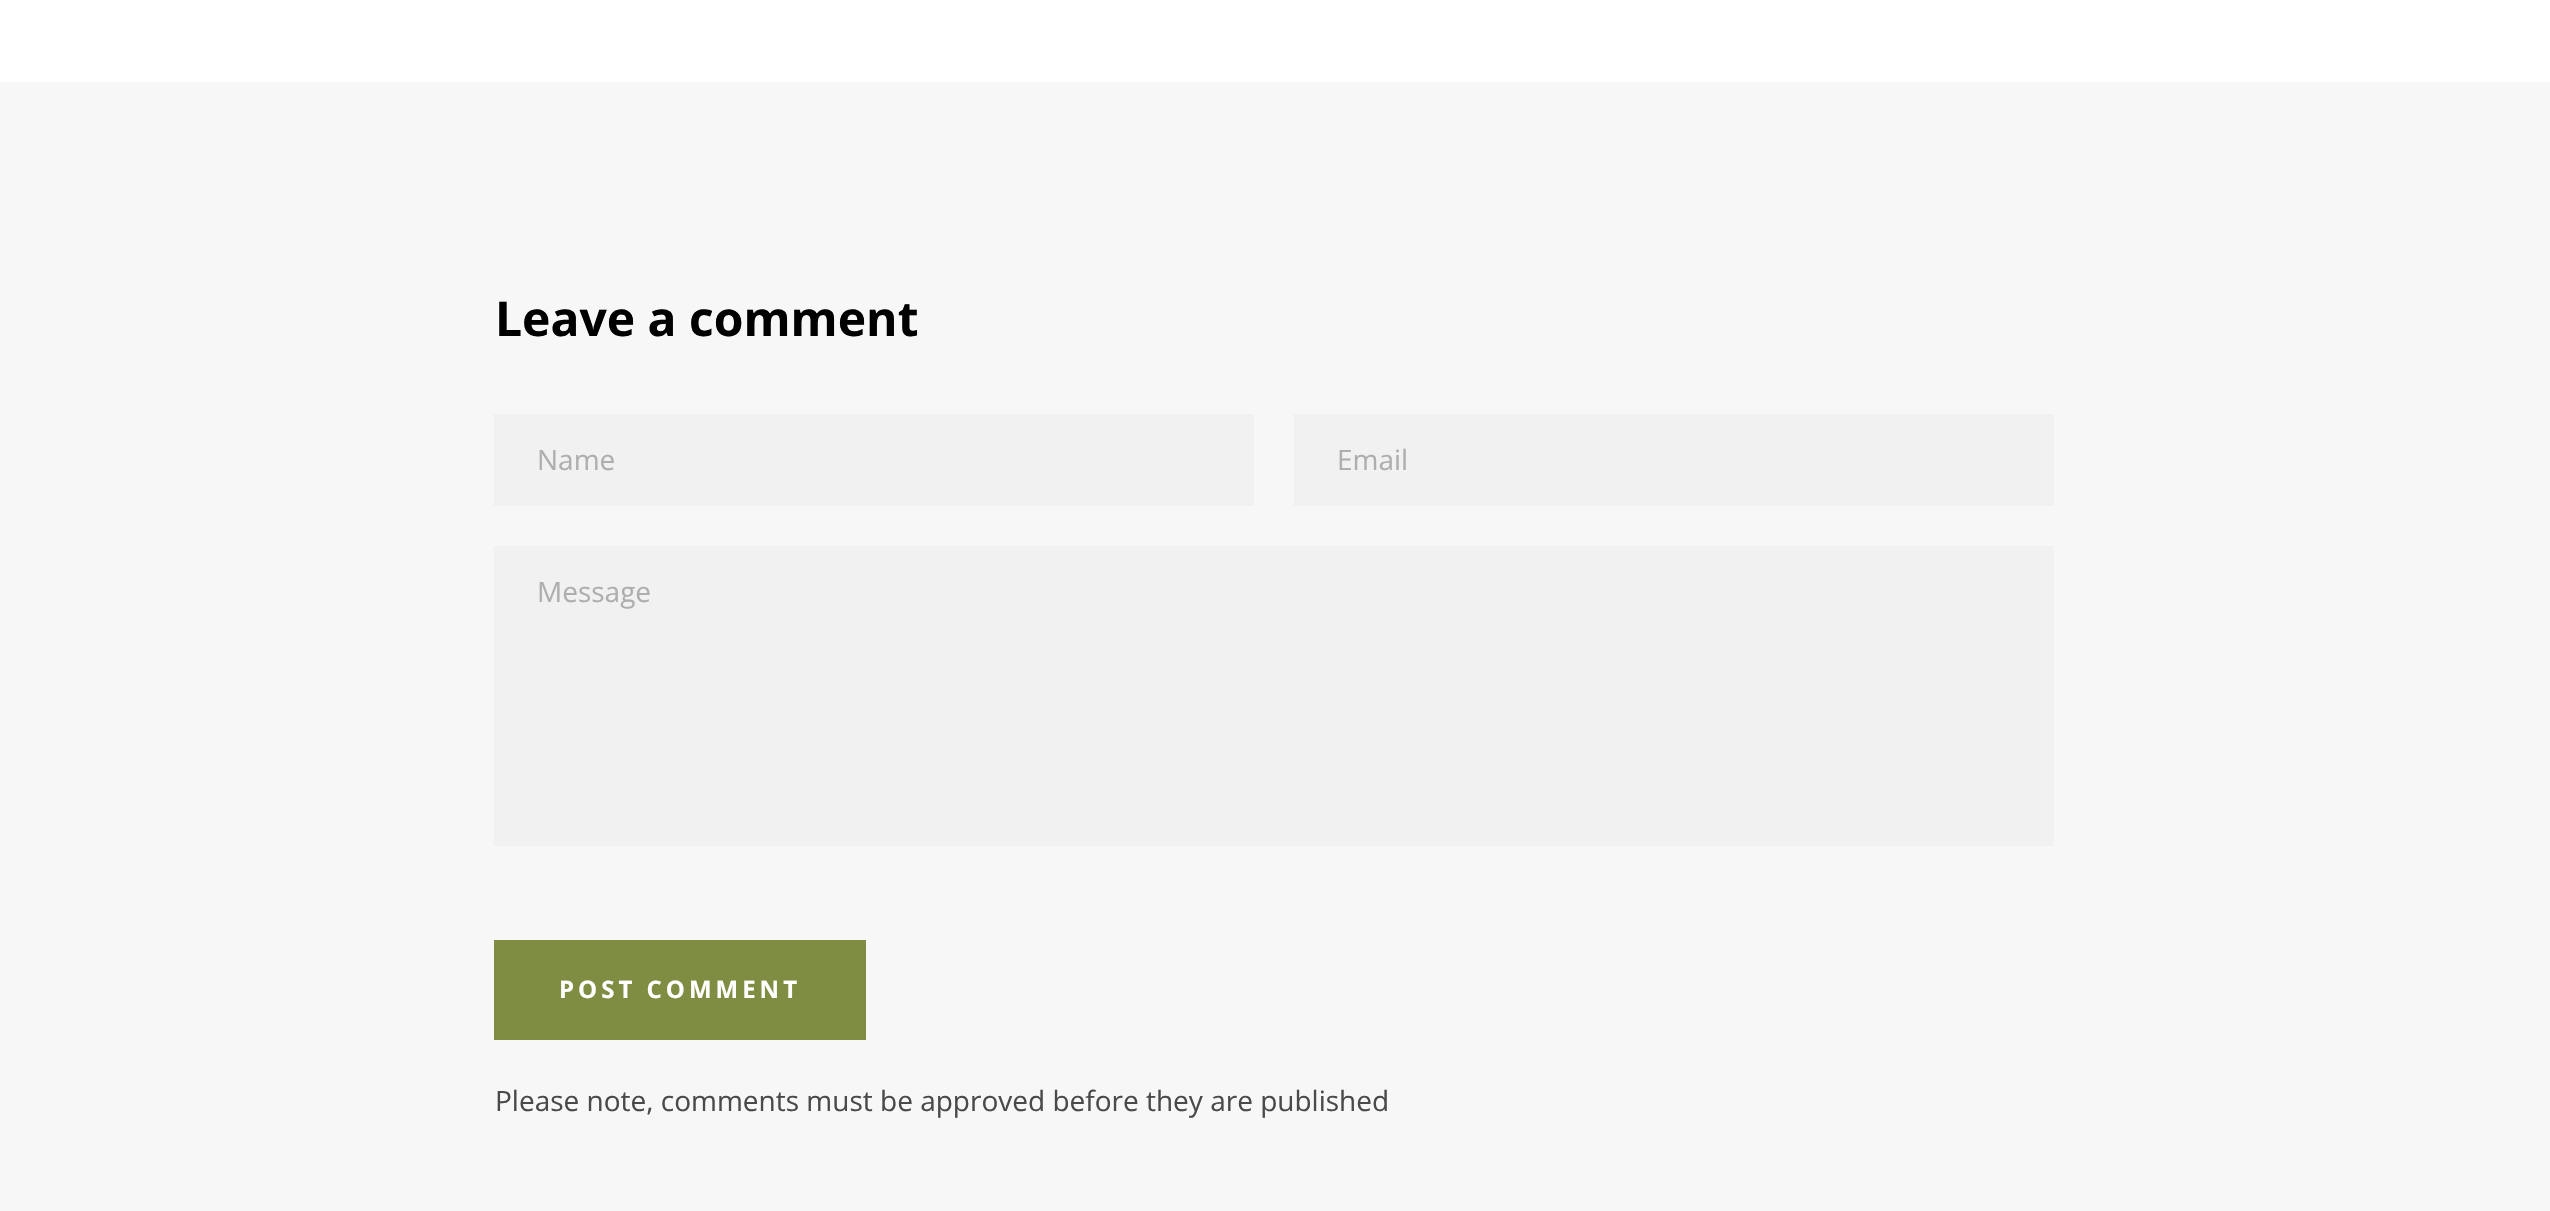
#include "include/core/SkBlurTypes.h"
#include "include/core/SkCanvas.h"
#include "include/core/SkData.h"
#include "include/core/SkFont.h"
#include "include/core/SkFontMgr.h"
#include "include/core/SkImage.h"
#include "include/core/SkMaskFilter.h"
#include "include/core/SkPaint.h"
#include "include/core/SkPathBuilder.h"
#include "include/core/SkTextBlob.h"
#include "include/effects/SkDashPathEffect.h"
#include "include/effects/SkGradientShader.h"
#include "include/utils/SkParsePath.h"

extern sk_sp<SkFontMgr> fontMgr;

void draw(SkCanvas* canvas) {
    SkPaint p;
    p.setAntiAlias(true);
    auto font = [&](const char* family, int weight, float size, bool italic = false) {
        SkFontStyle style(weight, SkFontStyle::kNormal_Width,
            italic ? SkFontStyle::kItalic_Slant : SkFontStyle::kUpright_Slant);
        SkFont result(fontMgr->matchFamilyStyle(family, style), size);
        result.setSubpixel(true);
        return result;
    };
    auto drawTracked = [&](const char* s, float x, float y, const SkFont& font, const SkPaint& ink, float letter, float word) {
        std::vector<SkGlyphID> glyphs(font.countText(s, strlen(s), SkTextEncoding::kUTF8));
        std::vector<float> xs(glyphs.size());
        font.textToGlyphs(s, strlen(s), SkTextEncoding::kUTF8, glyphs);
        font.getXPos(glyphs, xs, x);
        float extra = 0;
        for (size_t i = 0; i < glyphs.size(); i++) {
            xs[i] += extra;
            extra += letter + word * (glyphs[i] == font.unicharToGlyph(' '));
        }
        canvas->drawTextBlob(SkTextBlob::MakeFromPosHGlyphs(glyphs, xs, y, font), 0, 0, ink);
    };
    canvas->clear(0xFFFFFFFF);
    p.setColor(0xFFF7F7F7);
    canvas->drawRect(SkRect::MakeLTRB(0, 82, 2550, 1211), p);
    auto font1 = font("Open Sans", 700, 48);
    p.setColor(0xFF000000);
    canvas->drawString("Leave a comment", 495, 336, font1, p);
    p.setColor(0xFFF1F1F1);
    canvas->drawRect(SkRect::MakeLTRB(494, 414, 1254, 506), p);
    auto font2 = font("Open Sans", 400, 28);
    p.setColor(0xFFAEAEAE);
    canvas->drawString("Name", 537, 470, font2, p);
    p.setColor(0xFFF1F1F1);
    canvas->drawRect(SkRect::MakeLTRB(1294, 414, 2054, 506), p);
    p.setColor(0xFFAEAEAE);
    canvas->drawString("Email", 1337, 470, font2, p);
    p.setColor(0xFFF1F1F1);
    canvas->drawRect(SkRect::MakeLTRB(494, 546, 2054, 846), p);
    p.setColor(0xFFAEAEAE);
    canvas->drawString("Message", 537, 602, font2, p);
    p.setColor(0xFF7F8D42);
    canvas->drawRect(SkRect::MakeLTRB(494, 940, 866, 1040), p);
    auto font3 = font("Open Sans", 700, 24);
    p.setColor(0xFFFFFFFF);
    drawTracked("POST COMMENT", 559, 998, font3, p, 4, 0);
    p.setColor(0xFF4A4A4A);
    canvas->drawString("Please note, comments must be approved before they are published", 495, 1111, font2, p);
}
